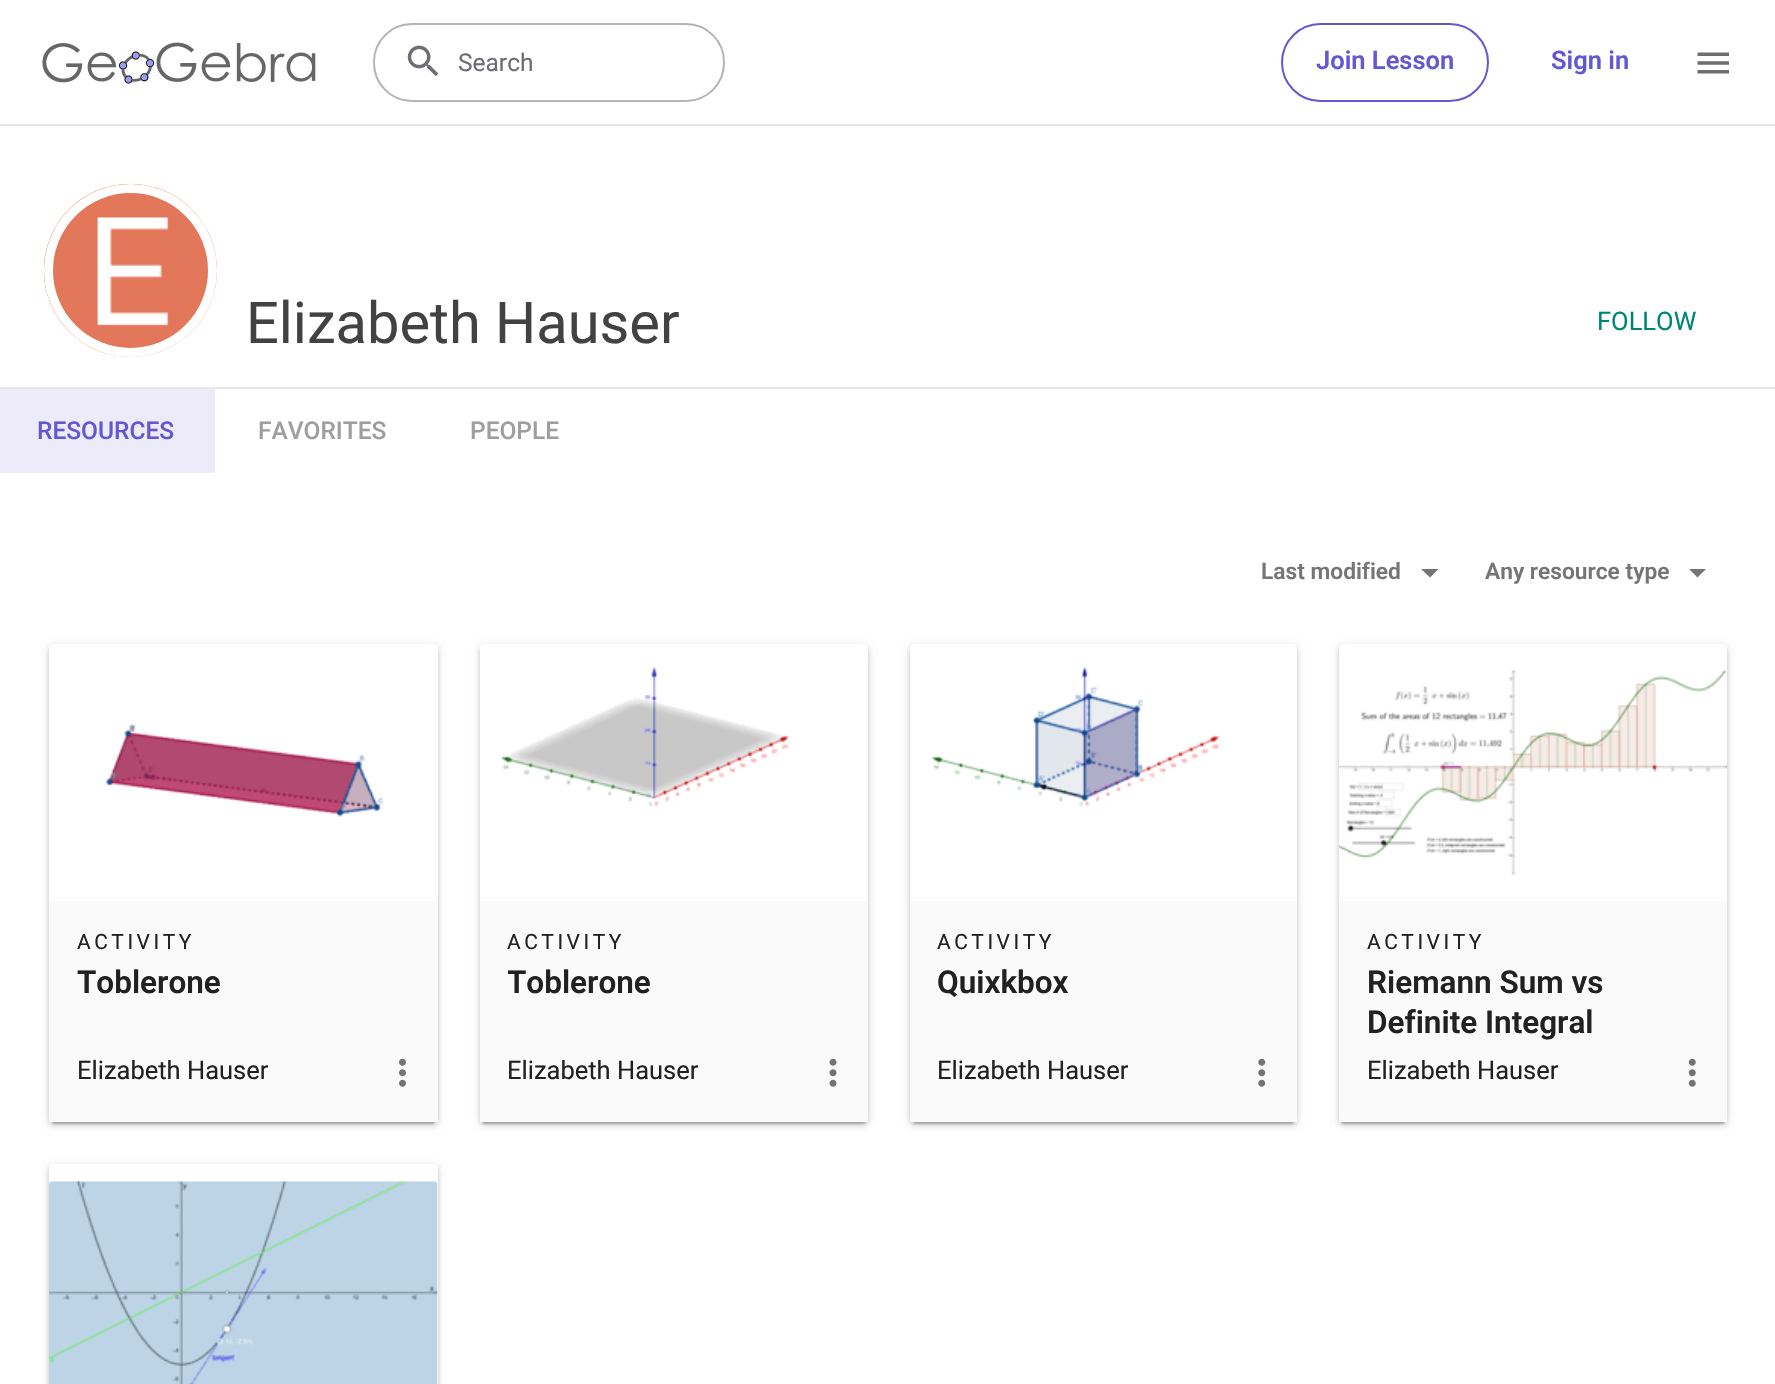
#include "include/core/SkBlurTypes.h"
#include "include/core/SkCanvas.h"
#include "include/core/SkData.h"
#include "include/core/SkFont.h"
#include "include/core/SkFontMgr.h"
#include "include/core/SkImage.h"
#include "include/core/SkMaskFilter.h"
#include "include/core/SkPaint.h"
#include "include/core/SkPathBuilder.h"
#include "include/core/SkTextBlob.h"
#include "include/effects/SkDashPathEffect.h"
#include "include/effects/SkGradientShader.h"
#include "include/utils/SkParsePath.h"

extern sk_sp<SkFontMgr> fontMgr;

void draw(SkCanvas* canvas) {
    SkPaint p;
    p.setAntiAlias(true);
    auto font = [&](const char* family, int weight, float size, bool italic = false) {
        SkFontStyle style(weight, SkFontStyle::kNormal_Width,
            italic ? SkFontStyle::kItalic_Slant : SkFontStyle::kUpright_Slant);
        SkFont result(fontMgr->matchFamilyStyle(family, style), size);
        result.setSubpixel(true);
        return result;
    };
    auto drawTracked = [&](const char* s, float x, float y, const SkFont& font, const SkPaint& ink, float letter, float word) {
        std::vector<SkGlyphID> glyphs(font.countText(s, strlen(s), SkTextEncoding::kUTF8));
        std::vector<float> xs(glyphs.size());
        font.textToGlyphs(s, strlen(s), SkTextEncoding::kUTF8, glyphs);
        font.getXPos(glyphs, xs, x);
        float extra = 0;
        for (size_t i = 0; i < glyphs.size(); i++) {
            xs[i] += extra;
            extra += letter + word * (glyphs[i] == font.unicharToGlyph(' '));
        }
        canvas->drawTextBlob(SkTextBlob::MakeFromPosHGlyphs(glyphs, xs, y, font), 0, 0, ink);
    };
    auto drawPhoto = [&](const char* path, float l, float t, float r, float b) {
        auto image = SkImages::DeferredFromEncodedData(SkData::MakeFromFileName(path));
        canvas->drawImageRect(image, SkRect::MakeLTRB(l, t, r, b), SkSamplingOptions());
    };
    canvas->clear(0xFFFFFFFF);
    p.setColor(0xFFE6E6EB);
    canvas->drawRect(SkRect::MakeLTRB(0, 124, 1775, 126), p);
    drawPhoto("media/1.png", 42, 42, 316, 84);
    p.setStyle(SkPaint::kStroke_Style);
    p.setStrokeWidth(2);
    p.setColor(0xFFB4B3BA);
    canvas->drawRoundRect(SkRect::MakeLTRB(374, 24, 724, 101), 38, 38, p);
    drawPhoto("media/2.png", 407, 45, 439, 77);
    auto font1 = font("Roboto", 400, 24.5f);
    p.setStyle(SkPaint::kFill_Style);
    p.setColor(0xFF6E6D73);
    canvas->drawString("Search", 458, 71, font1, p);
    p.setStyle(SkPaint::kStroke_Style);
    p.setColor(0xFF6557D2);
    canvas->drawRoundRect(SkRect::MakeLTRB(1282, 24, 1488, 101), 38.5f, 38.5f, p);
    auto font2 = font("Roboto", 600, 25.5f);
    p.setStyle(SkPaint::kFill_Style);
    canvas->drawString("Join Lesson", 1316, 69, font2, p);
    canvas->drawString("Sign in", 1551, 69, font2, p);
    drawPhoto("media/3.png", 1697, 52, 1729, 74);
    p.setColor(0xFFE6E6EB);
    canvas->drawRect(SkRect::MakeLTRB(0, 387, 1775, 389), p);
    drawPhoto("media/4.png", 43, 183, 217, 357);
    p.setStyle(SkPaint::kStroke_Style);
    p.setStrokeWidth(9);
    p.setColor(0xFFFFFFFF);
    canvas->drawCircle(130.5f, 270.5f, 82, p);
    auto font3 = font("Roboto", 400, 57.75f);
    p.setStyle(SkPaint::kFill_Style);
    p.setColor(0xFF424242);
    canvas->drawString("Elizabeth Hauser", 246, 343, font3, p);
    auto font4 = font("Roboto", 400, 25.5f);
    p.setColor(0xFF008475);
    canvas->drawString("FOLLOW", 1597, 330, font4, p);
    p.setColor(0xFFEDEBFA);
    canvas->drawRect(SkRect::MakeLTRB(0, 389, 215, 473), p);
    auto font5 = font("Roboto", 500, 24.5f);
    p.setColor(0xFF6557D2);
    canvas->drawString("RESOURCES", 37, 439, font5, p);
    p.setColor(0xFF9E9E9E);
    canvas->drawString("FAVORITES", 258, 439, font5, p);
    canvas->drawString("PEOPLE", 470, 439, font5, p);
    auto font6 = font("Roboto", 600, 22.75f);
    p.setColor(0xFF757575);
    canvas->drawString("Last modified", 1261, 579, font6, p);
    canvas->drawPath(SkPathBuilder().moveTo(1421, 569).lineTo(1430, 577.5f).lineTo(1438.5f, 569).close().detach(), p);
    canvas->drawString("Any resource type", 1485, 579, font6, p);
    canvas->drawPath(SkPathBuilder().moveTo(1689, 569).lineTo(1697.5f, 577.5f).lineTo(1706, 569).close().detach(), p);
    canvas->save();
    canvas->clipPath(SkPathBuilder(SkPathFillType::kEvenOdd).moveTo(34, 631).lineTo(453, 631).lineTo(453, 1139).lineTo(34, 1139).close().moveTo(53, 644).lineTo(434, 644).cubicTo(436, 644, 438, 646, 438, 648).lineTo(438, 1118).cubicTo(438, 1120, 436, 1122, 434, 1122).lineTo(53, 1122).cubicTo(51, 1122, 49, 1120, 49, 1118).lineTo(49, 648).cubicTo(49, 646, 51, 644, 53, 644).close().detach(), true);
    p.setColor(0x1F000000);
    p.setMaskFilter(SkMaskFilter::MakeBlur(kNormal_SkBlurStyle, 4.5f));
    canvas->drawRoundRect(SkRect::MakeLTRB(49, 646, 438, 1124), 4, 4, p);
    p.setMaskFilter(nullptr);
    canvas->restore();
    canvas->save();
    canvas->clipPath(SkPathBuilder(SkPathFillType::kEvenOdd).moveTo(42, 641).lineTo(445, 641).lineTo(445, 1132).lineTo(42, 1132).close().moveTo(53, 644).lineTo(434, 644).cubicTo(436, 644, 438, 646, 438, 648).lineTo(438, 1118).cubicTo(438, 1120, 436, 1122, 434, 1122).lineTo(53, 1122).cubicTo(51, 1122, 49, 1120, 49, 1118).lineTo(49, 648).cubicTo(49, 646, 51, 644, 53, 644).close().detach(), true);
    p.setColor(0x24000000);
    p.setMaskFilter(SkMaskFilter::MakeBlur(kNormal_SkBlurStyle, 2));
    canvas->drawRoundRect(SkRect::MakeLTRB(49, 648, 438, 1125), 4, 4, p);
    p.setMaskFilter(nullptr);
    canvas->restore();
    canvas->save();
    canvas->clipRect(SkRect::MakeLTRB(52, 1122, 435, 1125));
    p.setColor(0x33000000);
    p.setMaskFilter(SkMaskFilter::MakeBlur(kNormal_SkBlurStyle, 1));
    canvas->drawRect(SkRect::MakeLTRB(53, 653, 434, 1124), p);
    p.setMaskFilter(nullptr);
    canvas->restore();
    drawPhoto("media/5.png", 105, 656, 438, 890);
    p.setColor(0xFFFAFAFA);
    canvas->drawRect(SkRect::MakeLTRB(49, 901, 438, 1122), p);
    auto font7 = font("Roboto", 400, 21);
    p.setColor(0xFF212121);
    drawTracked("ACTIVITY", 77, 949, font7, p, 3.5f, 0);
    auto font8 = font("Roboto", 600, 31.5f);
    canvas->drawString("Toblerone", 77, 993, font8, p);
    canvas->drawString("Elizabeth Hauser", 77, 1079, font4, p);
    drawPhoto("media/6.png", 399, 1058, 406, 1087);
    canvas->save();
    canvas->clipPath(SkPathBuilder(SkPathFillType::kEvenOdd).moveTo(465, 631).lineTo(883, 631).lineTo(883, 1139).lineTo(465, 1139).close().moveTo(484, 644).lineTo(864, 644).cubicTo(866, 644, 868, 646, 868, 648).lineTo(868, 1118).cubicTo(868, 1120, 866, 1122, 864, 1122).lineTo(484, 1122).cubicTo(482, 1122, 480, 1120, 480, 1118).lineTo(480, 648).cubicTo(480, 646, 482, 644, 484, 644).close().detach(), true);
    p.setColor(0x1F000000);
    p.setMaskFilter(SkMaskFilter::MakeBlur(kNormal_SkBlurStyle, 4.5f));
    canvas->drawRoundRect(SkRect::MakeLTRB(480, 646, 868, 1124), 4, 4, p);
    p.setMaskFilter(nullptr);
    canvas->restore();
    canvas->save();
    canvas->clipPath(SkPathBuilder(SkPathFillType::kEvenOdd).moveTo(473, 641).lineTo(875, 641).lineTo(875, 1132).lineTo(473, 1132).close().moveTo(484, 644).lineTo(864, 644).cubicTo(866, 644, 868, 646, 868, 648).lineTo(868, 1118).cubicTo(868, 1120, 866, 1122, 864, 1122).lineTo(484, 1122).cubicTo(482, 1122, 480, 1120, 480, 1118).lineTo(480, 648).cubicTo(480, 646, 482, 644, 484, 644).close().detach(), true);
    p.setColor(0x24000000);
    p.setMaskFilter(SkMaskFilter::MakeBlur(kNormal_SkBlurStyle, 2));
    canvas->drawRoundRect(SkRect::MakeLTRB(480, 648, 868, 1125), 4, 4, p);
    p.setMaskFilter(nullptr);
    canvas->restore();
    canvas->save();
    canvas->clipRect(SkRect::MakeLTRB(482, 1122, 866, 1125));
    p.setColor(0x33000000);
    p.setMaskFilter(SkMaskFilter::MakeBlur(kNormal_SkBlurStyle, 1));
    canvas->drawRect(SkRect::MakeLTRB(483, 653, 865, 1124), p);
    p.setMaskFilter(nullptr);
    canvas->restore();
    drawPhoto("media/7.png", 500, 666, 790, 807);
    p.setColor(0xFFFAFAFA);
    canvas->drawRect(SkRect::MakeLTRB(480, 901, 868, 1122), p);
    p.setColor(0xFF212121);
    drawTracked("ACTIVITY", 507, 949, font7, p, 3.5f, 0);
    canvas->save();
    canvas->clipRect(SkRect::MakeLTRB(508, 961, 840, 1048));
    canvas->drawString("Toblerone", 507, 993, font8, p);
    canvas->restore();
    canvas->drawString("Elizabeth Hauser", 507, 1079, font4, p);
    drawPhoto("media/8.png", 829, 1058, 837, 1087);
    canvas->save();
    canvas->clipPath(SkPathBuilder(SkPathFillType::kEvenOdd).moveTo(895, 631).lineTo(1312, 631).lineTo(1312, 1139).lineTo(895, 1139).close().moveTo(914, 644).lineTo(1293, 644).cubicTo(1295, 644, 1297, 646, 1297, 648).lineTo(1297, 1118).cubicTo(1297, 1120, 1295, 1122, 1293, 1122).lineTo(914, 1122).cubicTo(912, 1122, 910, 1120, 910, 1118).lineTo(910, 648).cubicTo(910, 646, 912, 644, 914, 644).close().detach(), true);
    p.setColor(0x1F000000);
    p.setMaskFilter(SkMaskFilter::MakeBlur(kNormal_SkBlurStyle, 4.5f));
    canvas->drawRoundRect(SkRect::MakeLTRB(910, 646, 1297, 1124), 4, 4, p);
    p.setMaskFilter(nullptr);
    canvas->restore();
    canvas->save();
    canvas->clipPath(SkPathBuilder(SkPathFillType::kEvenOdd).moveTo(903, 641).lineTo(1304, 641).lineTo(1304, 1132).lineTo(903, 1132).close().moveTo(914, 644).lineTo(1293, 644).cubicTo(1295, 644, 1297, 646, 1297, 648).lineTo(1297, 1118).cubicTo(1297, 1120, 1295, 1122, 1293, 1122).lineTo(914, 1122).cubicTo(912, 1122, 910, 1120, 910, 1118).lineTo(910, 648).cubicTo(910, 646, 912, 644, 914, 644).close().detach(), true);
    p.setColor(0x24000000);
    p.setMaskFilter(SkMaskFilter::MakeBlur(kNormal_SkBlurStyle, 2));
    canvas->drawRoundRect(SkRect::MakeLTRB(910, 648, 1297, 1125), 4, 4, p);
    p.setMaskFilter(nullptr);
    canvas->restore();
    canvas->save();
    canvas->clipRect(SkRect::MakeLTRB(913, 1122, 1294, 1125));
    p.setColor(0x33000000);
    p.setMaskFilter(SkMaskFilter::MakeBlur(kNormal_SkBlurStyle, 1));
    canvas->drawRect(SkRect::MakeLTRB(914, 653, 1293, 1124), p);
    p.setMaskFilter(nullptr);
    canvas->restore();
    drawPhoto("media/9.png", 931, 655, 1297, 890);
    p.setColor(0xFFFAFAFA);
    canvas->drawRect(SkRect::MakeLTRB(910, 901, 1297, 1122), p);
    p.setColor(0xFF212121);
    drawTracked("ACTIVITY", 937, 949, font7, p, 3.5f, 0);
    canvas->drawString("Quixkbox", 937, 993, font8, p);
    canvas->drawString("Elizabeth Hauser", 937, 1079, font4, p);
    drawPhoto("media/10.png", 1258, 1058, 1266, 1087);
    canvas->save();
    canvas->clipPath(SkPathBuilder(SkPathFillType::kEvenOdd).moveTo(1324, 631).lineTo(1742, 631).lineTo(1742, 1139).lineTo(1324, 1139).close().moveTo(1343, 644).lineTo(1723, 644).cubicTo(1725, 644, 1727, 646, 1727, 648).lineTo(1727, 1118).cubicTo(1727, 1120, 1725, 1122, 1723, 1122).lineTo(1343, 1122).cubicTo(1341, 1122, 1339, 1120, 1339, 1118).lineTo(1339, 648).cubicTo(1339, 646, 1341, 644, 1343, 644).close().detach(), true);
    p.setColor(0x1F000000);
    p.setMaskFilter(SkMaskFilter::MakeBlur(kNormal_SkBlurStyle, 4.5f));
    canvas->drawRoundRect(SkRect::MakeLTRB(1339, 646, 1727, 1124), 4, 4, p);
    p.setMaskFilter(nullptr);
    canvas->restore();
    canvas->save();
    canvas->clipPath(SkPathBuilder(SkPathFillType::kEvenOdd).moveTo(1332, 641).lineTo(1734, 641).lineTo(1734, 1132).lineTo(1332, 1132).close().moveTo(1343, 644).lineTo(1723, 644).cubicTo(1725, 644, 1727, 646, 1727, 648).lineTo(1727, 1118).cubicTo(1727, 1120, 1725, 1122, 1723, 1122).lineTo(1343, 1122).cubicTo(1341, 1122, 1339, 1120, 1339, 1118).lineTo(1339, 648).cubicTo(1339, 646, 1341, 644, 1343, 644).close().detach(), true);
    p.setColor(0x24000000);
    p.setMaskFilter(SkMaskFilter::MakeBlur(kNormal_SkBlurStyle, 2));
    canvas->drawRoundRect(SkRect::MakeLTRB(1339, 648, 1727, 1125), 4, 4, p);
    p.setMaskFilter(nullptr);
    canvas->restore();
    canvas->save();
    canvas->clipRect(SkRect::MakeLTRB(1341, 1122, 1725, 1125));
    p.setColor(0x33000000);
    p.setMaskFilter(SkMaskFilter::MakeBlur(kNormal_SkBlurStyle, 1));
    canvas->drawRect(SkRect::MakeLTRB(1342, 653, 1724, 1124), p);
    p.setMaskFilter(nullptr);
    canvas->restore();
    drawPhoto("media/11.png", 1339, 670, 1727, 875);
    p.setColor(0xFFFAFAFA);
    canvas->drawRect(SkRect::MakeLTRB(1339, 901, 1727, 1122), p);
    p.setColor(0xFF212121);
    drawTracked("ACTIVITY", 1367, 949, font7, p, 3.5f, 0);
    canvas->drawString("Riemann Sum vs", 1367, 993, font8, p);
    canvas->drawString("Definite Integral", 1367, 1033, font8, p);
    canvas->drawString("Elizabeth Hauser", 1367, 1079, font4, p);
    drawPhoto("media/12.png", 1688, 1058, 1696, 1087);
    canvas->save();
    canvas->clipPath(SkPathBuilder(SkPathFillType::kEvenOdd).moveTo(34, 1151).lineTo(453, 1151).lineTo(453, 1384).lineTo(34, 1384).close().moveTo(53, 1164).lineTo(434, 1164).cubicTo(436, 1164, 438, 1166, 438, 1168).lineTo(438, 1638).cubicTo(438, 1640, 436, 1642, 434, 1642).lineTo(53, 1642).cubicTo(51, 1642, 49, 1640, 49, 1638).lineTo(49, 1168).cubicTo(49, 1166, 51, 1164, 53, 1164).close().detach(), true);
    p.setColor(0x1F000000);
    p.setMaskFilter(SkMaskFilter::MakeBlur(kNormal_SkBlurStyle, 4.5f));
    canvas->drawRoundRect(SkRect::MakeLTRB(49, 1166, 438, 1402), 4, 4, p);
    p.setMaskFilter(nullptr);
    canvas->restore();
    canvas->save();
    canvas->clipPath(SkPathBuilder(SkPathFillType::kEvenOdd).moveTo(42, 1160).lineTo(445, 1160).lineTo(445, 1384).lineTo(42, 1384).close().moveTo(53, 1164).lineTo(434, 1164).cubicTo(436, 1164, 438, 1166, 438, 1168).lineTo(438, 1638).cubicTo(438, 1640, 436, 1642, 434, 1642).lineTo(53, 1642).cubicTo(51, 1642, 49, 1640, 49, 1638).lineTo(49, 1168).cubicTo(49, 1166, 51, 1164, 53, 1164).close().detach(), true);
    p.setColor(0x24000000);
    p.setMaskFilter(SkMaskFilter::MakeBlur(kNormal_SkBlurStyle, 2));
    canvas->drawRoundRect(SkRect::MakeLTRB(49, 1167, 438, 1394), 4, 4, p);
    p.setMaskFilter(nullptr);
    canvas->restore();
    drawPhoto("media/13.png", 49, 1181, 438, 1384);
}
